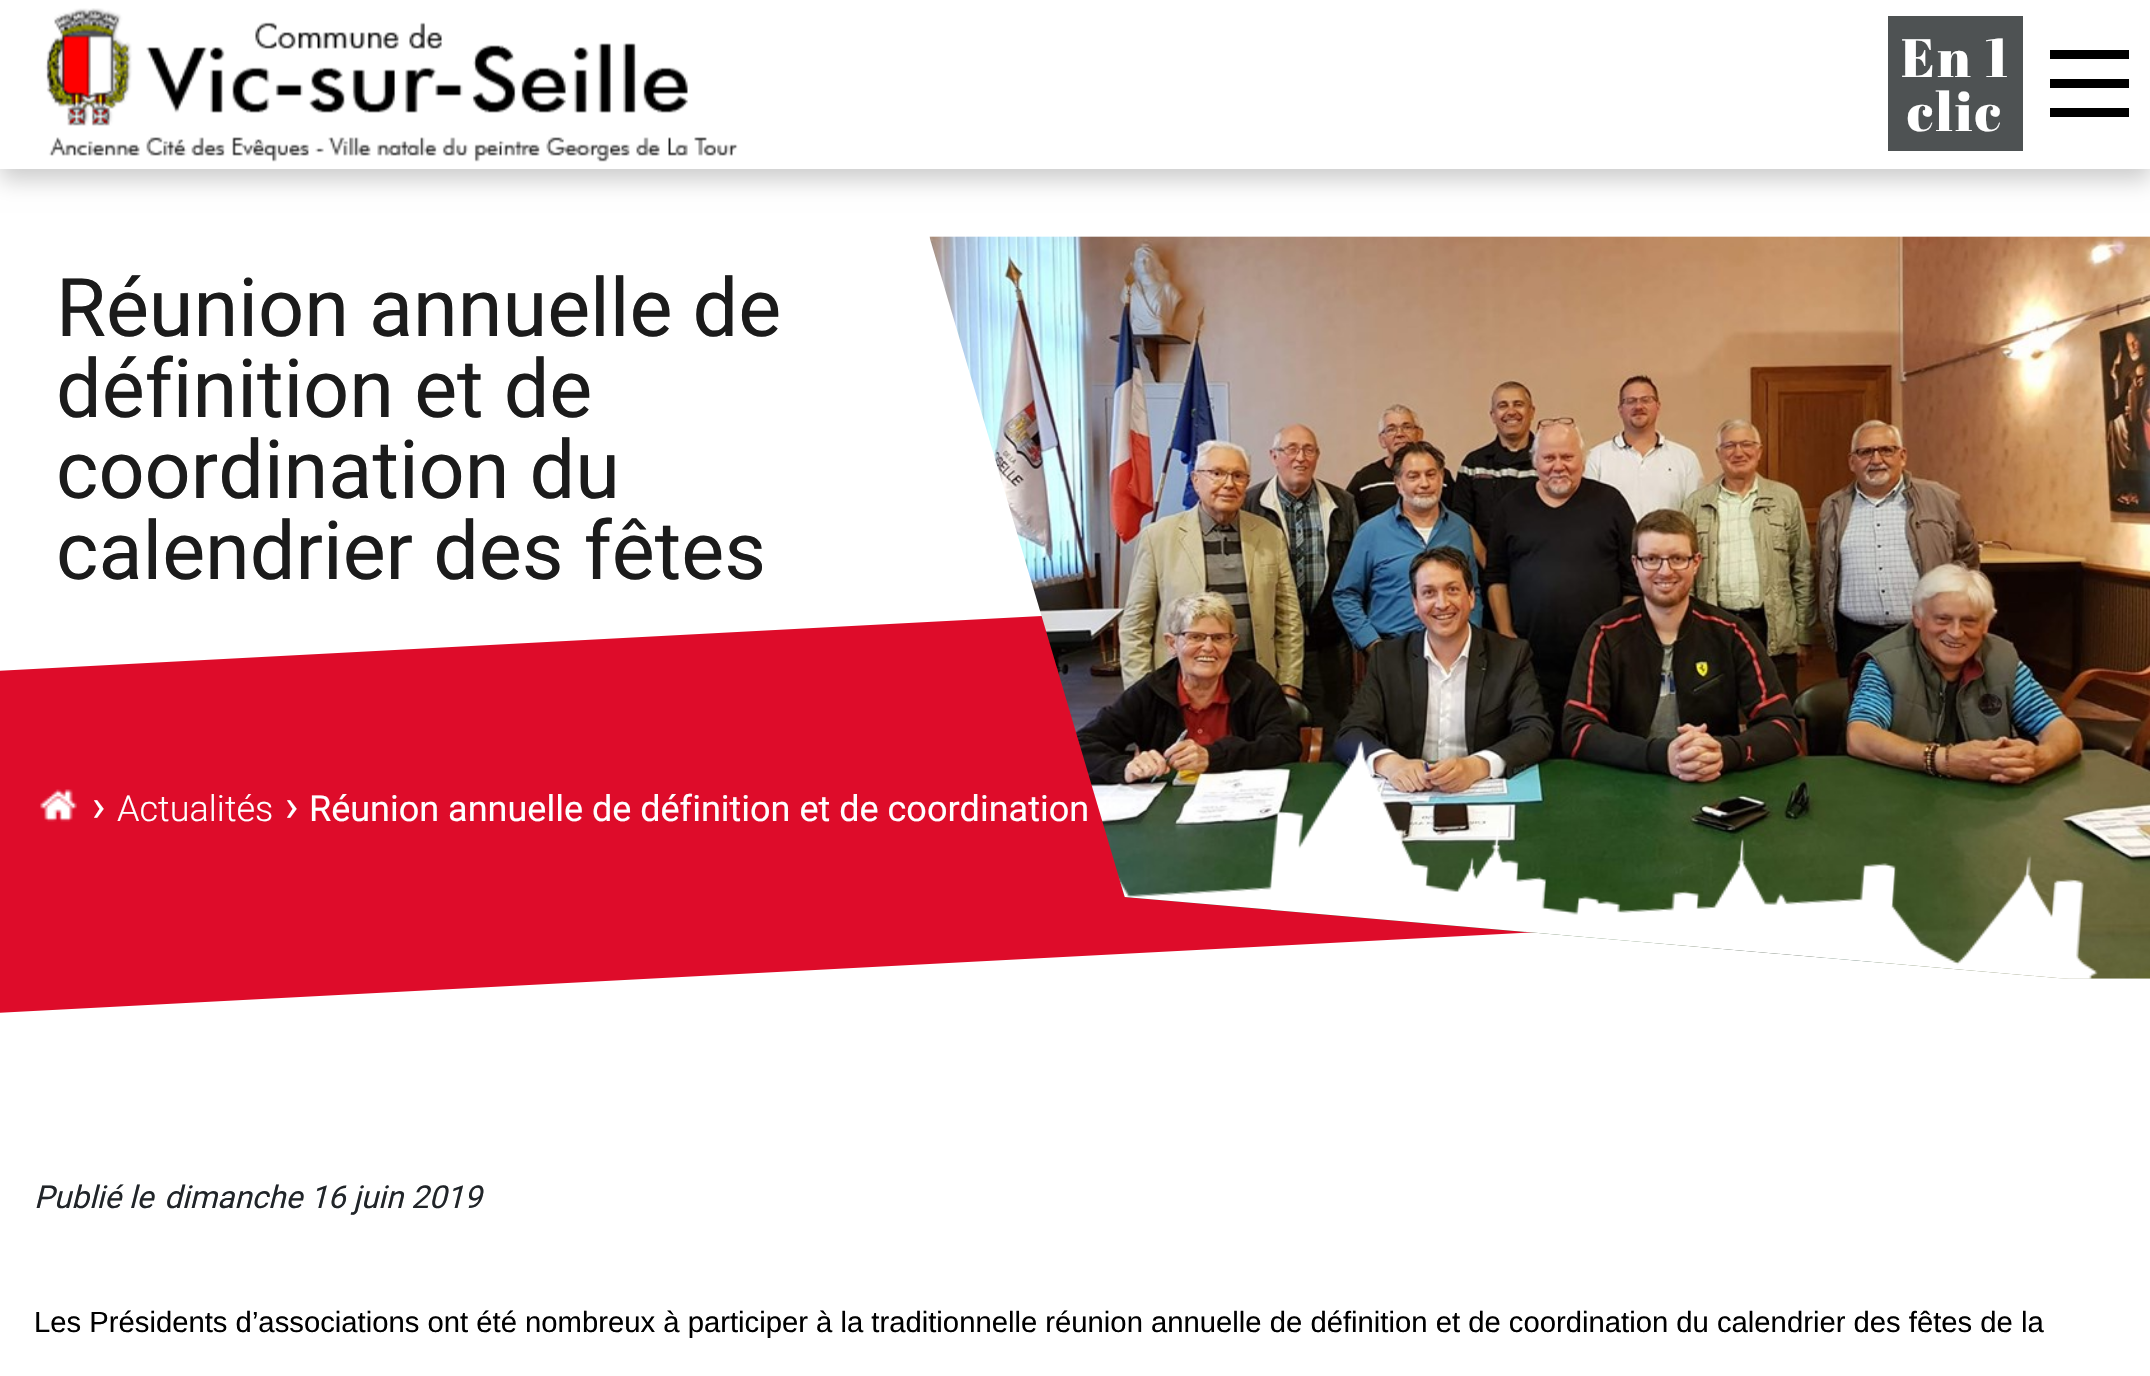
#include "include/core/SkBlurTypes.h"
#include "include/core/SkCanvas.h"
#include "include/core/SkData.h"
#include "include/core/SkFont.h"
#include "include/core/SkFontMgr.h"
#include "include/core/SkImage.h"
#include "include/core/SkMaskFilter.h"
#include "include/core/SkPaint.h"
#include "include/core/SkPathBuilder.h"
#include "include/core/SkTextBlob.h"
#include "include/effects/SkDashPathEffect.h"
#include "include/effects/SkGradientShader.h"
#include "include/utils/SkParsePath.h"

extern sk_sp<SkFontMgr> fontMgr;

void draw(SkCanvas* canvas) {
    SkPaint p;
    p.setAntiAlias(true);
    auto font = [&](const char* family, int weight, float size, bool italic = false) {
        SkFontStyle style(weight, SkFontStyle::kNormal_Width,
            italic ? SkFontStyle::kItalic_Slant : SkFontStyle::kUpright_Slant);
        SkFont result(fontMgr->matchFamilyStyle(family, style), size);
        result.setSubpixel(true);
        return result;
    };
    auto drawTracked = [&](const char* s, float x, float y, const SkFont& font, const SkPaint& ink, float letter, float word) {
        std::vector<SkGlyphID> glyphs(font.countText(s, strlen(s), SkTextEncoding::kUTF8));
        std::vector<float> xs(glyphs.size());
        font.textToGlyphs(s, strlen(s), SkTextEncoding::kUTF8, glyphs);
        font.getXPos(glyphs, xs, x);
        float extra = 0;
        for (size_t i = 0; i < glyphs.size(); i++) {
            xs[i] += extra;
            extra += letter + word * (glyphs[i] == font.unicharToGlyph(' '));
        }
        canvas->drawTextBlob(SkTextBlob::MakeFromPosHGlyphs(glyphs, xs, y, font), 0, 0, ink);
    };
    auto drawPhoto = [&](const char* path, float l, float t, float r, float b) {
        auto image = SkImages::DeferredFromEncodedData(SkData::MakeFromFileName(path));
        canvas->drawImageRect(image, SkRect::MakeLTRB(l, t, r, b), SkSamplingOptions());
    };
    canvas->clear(0xFFFFFFFF);
    canvas->save();
    canvas->clipPath(SkPathBuilder(SkPathFillType::kEvenOdd).moveTo(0, 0).lineTo(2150, 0).lineTo(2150, 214).lineTo(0, 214).close().moveTo(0, 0).lineTo(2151, 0).lineTo(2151, 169).lineTo(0, 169).close().detach(), true);
    p.setColor(0x33000000);
    p.setMaskFilter(SkMaskFilter::MakeBlur(kNormal_SkBlurStyle, 11));
    canvas->drawRect(SkRect::MakeLTRB(0, 11, 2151, 180), p);
    p.setMaskFilter(nullptr);
    canvas->restore();
    p.setColor(0xF2FFFFFF);
    canvas->drawRect(SkRect::MakeLTRB(0, 168, 2150, 169), p);
    drawPhoto("media/1.png", 45, 8, 738, 162);
    p.setColor(0xFF4E5253);
    canvas->drawRect(SkRect::MakeLTRB(1888, 16, 2023, 151), p);
    auto font1 = font("Abril Fatface", 400, 54);
    p.setColor(0xFFFFFFFF);
    drawTracked("En 1", 1901, 77, font1, p, 2.5f, 0);
    drawTracked("clic", 1907, 131, font1, p, 2.5f, 0);
    {
        const struct { float l, t, r, b; SkColor color; } items[] = {
            {2050, 50, 2129, 59, 0xFF000000},
            {2050, 79, 2129, 88, 0xFF000000},
            {2050, 108, 2129, 117, 0xFF000000},
        };
        for (auto [l, t, r, b, color] : items) {
            p.setColor(color);
            canvas->drawRect(SkRect::MakeLTRB(l, t, r, b), p);
        }
    }
    auto font2 = font("Roboto", 400, 81);
    p.setColor(0xFF1B1B1B);
    {
        const struct { const char* s; float x, y; } items[] = {
            {"Réunion annuelle de", 56, 336},
            {"définition et de", 56, 417},
            {"coordination du", 56, 498},
        };
        for (auto [s, x, y] : items) {
            canvas->drawString(s, x, y, font2, p);
        }
    }
    p.setColor(0xFFDE0C2A);
    canvas->drawPath(SkPathBuilder().moveTo(-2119, 782).lineTo(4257, 447).lineTo(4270, 699).lineTo(-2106, 1034).close().detach(), p);
    p.setColor(0xFF1B1B1B);
    canvas->drawString("calendrier des fêtes", 56, 579, font2, p);
    p.setColor(0xFFDE0C2A);
    canvas->drawPath(SkPathBuilder().moveTo(-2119, 871).lineTo(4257, 537).lineTo(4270, 789).lineTo(-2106, 1123).close().detach(), p);
    drawPhoto("media/2.png", 40, 789, 77, 822);
    auto font3 = font("Roboto", 400, 45);
    p.setColor(0xFFFFFFFF);
    canvas->drawString("›", 92, 821, font3, p);
    auto font4 = font("Roboto", 300, 36);
    canvas->drawString("Actualités", 117, 821, font4, p);
    canvas->drawString("›", 285, 821, font3, p);
    auto font5 = font("Roboto", 400, 36);
    canvas->drawString("Réunion annuelle de définition et de coordination", 309, 821, font5, p);
    drawPhoto("media/3.png", 929, 236, 2150, 979);
    drawPhoto("media/4.png", 1118, 741, 2098, 979);
    auto font6 = font("Roboto", 400, 31.5f, true);
    p.setColor(0xFF212529);
    canvas->drawString("Publié le", 34, 1208, font6, p);
    canvas->drawString("dimanche 16 juin 2019", 164, 1208, font6, p);
    auto font7 = font("Liberation Sans", 400, 29.25f);
    p.setColor(0xFF000000);
    canvas->drawString("Les Présidents d’associations ont été nombreux à participer à la traditionnelle réunion annuelle de définition et de coordination du calendrier des fêtes de la", 34, 1332, font7, p);
}
